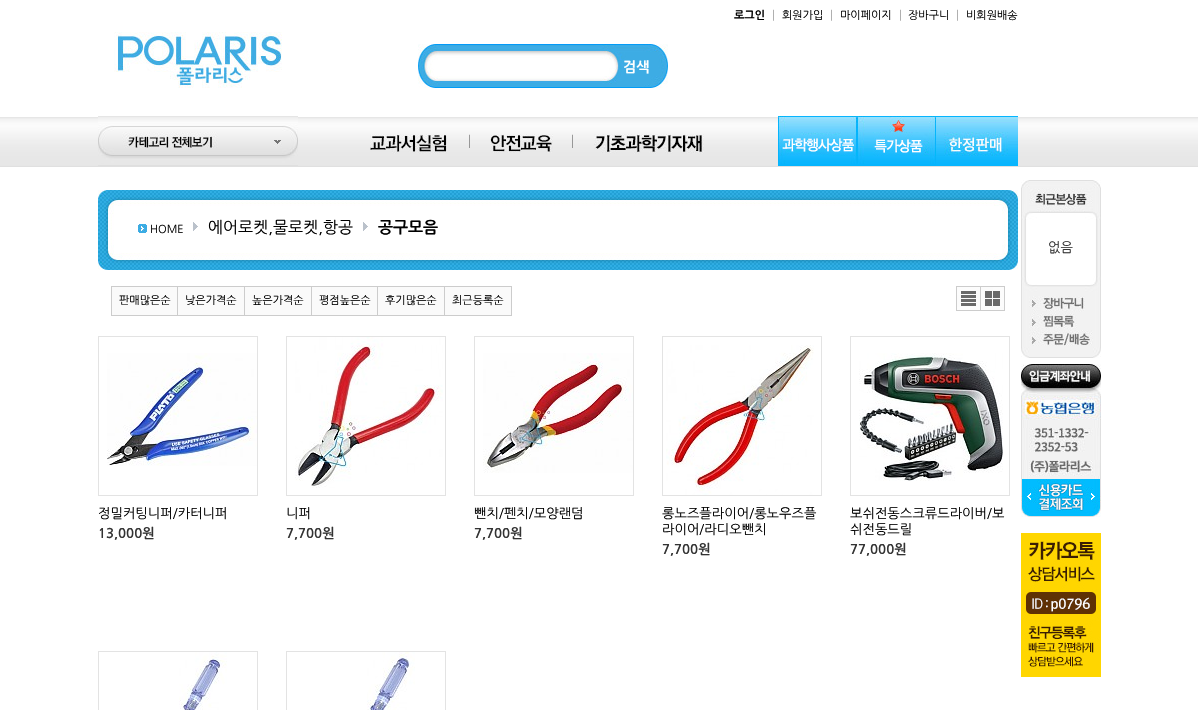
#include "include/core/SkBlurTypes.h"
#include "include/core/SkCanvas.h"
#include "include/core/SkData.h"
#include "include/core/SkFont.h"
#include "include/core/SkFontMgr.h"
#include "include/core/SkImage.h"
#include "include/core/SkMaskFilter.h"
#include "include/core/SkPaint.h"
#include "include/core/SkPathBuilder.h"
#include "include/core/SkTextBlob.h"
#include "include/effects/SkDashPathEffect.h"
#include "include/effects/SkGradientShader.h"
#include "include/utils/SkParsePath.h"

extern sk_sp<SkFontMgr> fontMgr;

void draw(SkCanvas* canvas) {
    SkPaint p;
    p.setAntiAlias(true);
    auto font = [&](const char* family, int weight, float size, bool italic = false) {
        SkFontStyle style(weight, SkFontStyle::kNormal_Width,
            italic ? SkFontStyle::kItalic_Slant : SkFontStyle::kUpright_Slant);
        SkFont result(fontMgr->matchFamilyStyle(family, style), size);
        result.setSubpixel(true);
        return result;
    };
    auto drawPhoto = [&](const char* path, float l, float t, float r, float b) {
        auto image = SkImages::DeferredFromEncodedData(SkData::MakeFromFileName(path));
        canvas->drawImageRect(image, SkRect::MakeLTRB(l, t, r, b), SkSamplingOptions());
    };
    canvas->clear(0xFFFFFFFF);
    drawPhoto("media/1.png", 0, 117, 1198, 167);
    auto font1 = font("NanumGothic", 700, 11);
    p.setColor(0xFF000000);
    canvas->drawString("로그인", 734, 19, font1, p);
    auto font2 = font("NanumGothic", 400, 11);
    p.setColor(0xFF333333);
    canvas->drawString("│", 768, 19, font2, p);
    p.setColor(0xFF000000);
    canvas->drawString("회원가입", 782, 19, font2, p);
    p.setColor(0xFF333333);
    canvas->drawString("│", 826, 19, font2, p);
    p.setColor(0xFF000000);
    canvas->drawString("마이페이지", 840, 19, font2, p);
    p.setColor(0xFF333333);
    canvas->drawString("│", 895, 19, font2, p);
    p.setColor(0xFF000000);
    canvas->drawString("장바구니", 908, 19, font2, p);
    p.setColor(0xFF333333);
    canvas->drawString("│", 952, 19, font2, p);
    p.setColor(0xFF000000);
    canvas->drawString("비회원배송", 966, 19, font2, p);
    drawPhoto("media/2.png", 114, 32, 282, 88);
    drawPhoto("media/3.png", 418, 44, 668, 88);
    auto font3 = font("NanumGothic", 700, 14);
    p.setColor(0xFFFFFFFF);
    canvas->drawString("검색", 623, 72, font3, p);
    drawPhoto("media/4.png", 98, 116, 298, 166);
    drawPhoto("media/5.png", 370, 134, 447, 154);
    auto font4 = font("NanumGothic", 400, 13.25f);
    p.setColor(0xFF333333);
    canvas->drawString("│", 463, 146, font4, p);
    drawPhoto("media/6.png", 490, 134, 553, 153);
    canvas->drawString("│", 566, 146, font4, p);
    drawPhoto("media/7.png", 594, 134, 704, 154);
    drawPhoto("media/8.png", 778, 116, 857, 166);
    drawPhoto("media/9.png", 857, 116, 936, 166);
    drawPhoto("media/10.png", 936, 116, 1018, 166);
    drawPhoto("media/11.png", 98, 190, 1018, 217);
    drawPhoto("media/12.png", 98, 217, 1018, 245);
    drawPhoto("media/13.png", 193, 222, 198, 231);
    drawPhoto("media/14.png", 138, 224, 147, 233);
    p.setColor(0xFF000000);
    canvas->drawString("HOME", 150, 233, font2, p);
    drawPhoto("media/13.png", 363, 222, 368, 231);
    auto font5 = font("NanumGothic", 400, 16);
    canvas->drawString("에어로켓,물로켓,항공", 208, 233, font5, p);
    auto font6 = font("NanumGothic", 700, 16);
    canvas->drawString("공구모음", 378, 233, font6, p);
    drawPhoto("media/15.png", 98, 245, 1018, 270);
    p.setColor(0xFFFAFAFA);
    canvas->drawRect(SkRect::MakeLTRB(111.5f, 286.5f, 177.5f, 315.5f), p);
    p.setStyle(SkPaint::kStroke_Style);
    p.setStrokeWidth(1);
    p.setColor(0xFFCCCCCC);
    canvas->drawRect(SkRect::MakeLTRB(111.5f, 286.5f, 177.5f, 315.5f), p);
    p.setStyle(SkPaint::kFill_Style);
    p.setColor(0xFF000000);
    canvas->drawString("판매많은순", 119, 304, font2, p);
    p.setColor(0xFFFAFAFA);
    canvas->drawRect(SkRect::MakeLTRB(177.5f, 286.5f, 244.5f, 315.5f), p);
    p.setStyle(SkPaint::kStroke_Style);
    p.setColor(0xFFCCCCCC);
    canvas->drawRect(SkRect::MakeLTRB(177.5f, 286.5f, 244.5f, 315.5f), p);
    p.setStyle(SkPaint::kFill_Style);
    p.setColor(0xFF000000);
    canvas->drawString("낮은가격순", 185, 304, font2, p);
    p.setColor(0xFFFAFAFA);
    canvas->drawRect(SkRect::MakeLTRB(244.5f, 286.5f, 311.5f, 315.5f), p);
    p.setStyle(SkPaint::kStroke_Style);
    p.setColor(0xFFCCCCCC);
    canvas->drawRect(SkRect::MakeLTRB(244.5f, 286.5f, 311.5f, 315.5f), p);
    p.setStyle(SkPaint::kFill_Style);
    p.setColor(0xFF000000);
    canvas->drawString("높은가격순", 252, 304, font2, p);
    p.setColor(0xFFFAFAFA);
    canvas->drawRect(SkRect::MakeLTRB(311.5f, 286.5f, 377.5f, 315.5f), p);
    p.setStyle(SkPaint::kStroke_Style);
    p.setColor(0xFFCCCCCC);
    canvas->drawRect(SkRect::MakeLTRB(311.5f, 286.5f, 377.5f, 315.5f), p);
    p.setStyle(SkPaint::kFill_Style);
    p.setColor(0xFF000000);
    canvas->drawString("평점높은순", 319, 304, font2, p);
    p.setColor(0xFFFAFAFA);
    canvas->drawRect(SkRect::MakeLTRB(377.5f, 286.5f, 444.5f, 315.5f), p);
    p.setStyle(SkPaint::kStroke_Style);
    p.setColor(0xFFCCCCCC);
    canvas->drawRect(SkRect::MakeLTRB(377.5f, 286.5f, 444.5f, 315.5f), p);
    p.setStyle(SkPaint::kFill_Style);
    p.setColor(0xFF000000);
    canvas->drawString("후기많은순", 385, 304, font2, p);
    p.setColor(0xFFFAFAFA);
    canvas->drawRect(SkRect::MakeLTRB(444.5f, 286.5f, 511.5f, 315.5f), p);
    p.setStyle(SkPaint::kStroke_Style);
    p.setColor(0xFFCCCCCC);
    canvas->drawRect(SkRect::MakeLTRB(444.5f, 286.5f, 511.5f, 315.5f), p);
    p.setStyle(SkPaint::kFill_Style);
    p.setColor(0xFF000000);
    canvas->drawString("최근등록순", 452, 304, font2, p);
    drawPhoto("media/16.png", 957, 287, 980, 310);
    p.setStyle(SkPaint::kStroke_Style);
    p.setColor(0xFFCCCCCC);
    canvas->drawRect(SkRect::MakeLTRB(956.5f, 286.5f, 980.5f, 310.5f), p);
    drawPhoto("media/17.png", 981, 287, 1004, 310);
    canvas->drawRect(SkRect::MakeLTRB(980.5f, 286.5f, 1004.5f, 310.5f), p);
    p.setColor(0xFFE3E3E3);
    canvas->drawRect(SkRect::MakeLTRB(98.5f, 336.5f, 257.5f, 495.5f), p);
    drawPhoto("media/18.png", 107, 353, 257, 466);
    p.setStyle(SkPaint::kFill_Style);
    p.setColor(0xFF000000);
    canvas->drawString("정밀커팅니퍼/카터니퍼", 98, 518, font4, p);
    auto font7 = font("NanumGothic", 700, 13.25f);
    p.setColor(0xFF333333);
    canvas->drawString("13,000원", 98, 538, font7, p);
    p.setStyle(SkPaint::kStroke_Style);
    p.setColor(0xFFE3E3E3);
    canvas->drawRect(SkRect::MakeLTRB(286.5f, 336.5f, 445.5f, 495.5f), p);
    drawPhoto("media/19.png", 295, 337, 443, 488);
    p.setStyle(SkPaint::kFill_Style);
    p.setColor(0xFF000000);
    canvas->drawString("니퍼", 286, 518, font4, p);
    p.setColor(0xFF333333);
    canvas->drawString("7,700원", 286, 538, font7, p);
    p.setStyle(SkPaint::kStroke_Style);
    p.setColor(0xFFE3E3E3);
    canvas->drawRect(SkRect::MakeLTRB(474.5f, 336.5f, 633.5f, 495.5f), p);
    drawPhoto("media/20.png", 483, 353, 633, 473);
    p.setStyle(SkPaint::kFill_Style);
    p.setColor(0xFF000000);
    canvas->drawString("뺀치/펜치/모양랜덤", 474, 518, font4, p);
    p.setColor(0xFF333333);
    canvas->drawString("7,700원", 474, 538, font7, p);
    p.setStyle(SkPaint::kStroke_Style);
    p.setColor(0xFFE3E3E3);
    canvas->drawRect(SkRect::MakeLTRB(662.5f, 336.5f, 821.5f, 495.5f), p);
    drawPhoto("media/21.png", 666, 345, 814, 495);
    p.setStyle(SkPaint::kFill_Style);
    p.setColor(0xFF000000);
    canvas->drawString("롱노즈플라이어/롱노우즈플", 662, 518, font4, p);
    canvas->drawString("라이어/라디오뺀치", 662, 534, font4, p);
    p.setColor(0xFF333333);
    canvas->drawString("7,700원", 662, 554, font7, p);
    p.setStyle(SkPaint::kStroke_Style);
    p.setColor(0xFFE3E3E3);
    canvas->drawRect(SkRect::MakeLTRB(850.5f, 336.5f, 1009.5f, 495.5f), p);
    drawPhoto("media/22.png", 859, 353, 1003, 481);
    p.setStyle(SkPaint::kFill_Style);
    p.setColor(0xFF000000);
    canvas->drawString("보쉬전동스크류드라이버/보", 850, 518, font4, p);
    canvas->drawString("쉬전동드릴", 850, 534, font4, p);
    p.setColor(0xFF333333);
    canvas->drawString("77,000원", 850, 554, font7, p);
    p.setStyle(SkPaint::kStroke_Style);
    p.setColor(0xFFE3E3E3);
    canvas->drawRect(SkRect::MakeLTRB(98.5f, 651.5f, 257.5f, 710.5f), p);
    drawPhoto("media/23.png", 179, 652, 227, 710);
    canvas->drawRect(SkRect::MakeLTRB(286.5f, 651.5f, 445.5f, 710.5f), p);
    drawPhoto("media/24.png", 367, 652, 415, 710);
    drawPhoto("media/25.png", 1021, 180, 1101, 220);
    drawPhoto("media/26.png", 1021, 220, 1101, 276);
    p.setStyle(SkPaint::kFill_Style);
    p.setColor(0xFF333333);
    canvas->drawString("없음", 1048, 252, font4, p);
    drawPhoto("media/27.png", 1021, 276, 1101, 296);
    drawPhoto("media/28.png", 1021, 296, 1101, 313);
    drawPhoto("media/29.png", 1021, 313, 1101, 330);
    drawPhoto("media/30.png", 1021, 330, 1101, 347);
    drawPhoto("media/31.png", 1021, 347, 1101, 358);
    drawPhoto("media/32.png", 1021, 364, 1101, 479);
    drawPhoto("media/33.png", 1021, 479, 1101, 517);
    drawPhoto("media/34.png", 1021, 533, 1101, 677);
}
